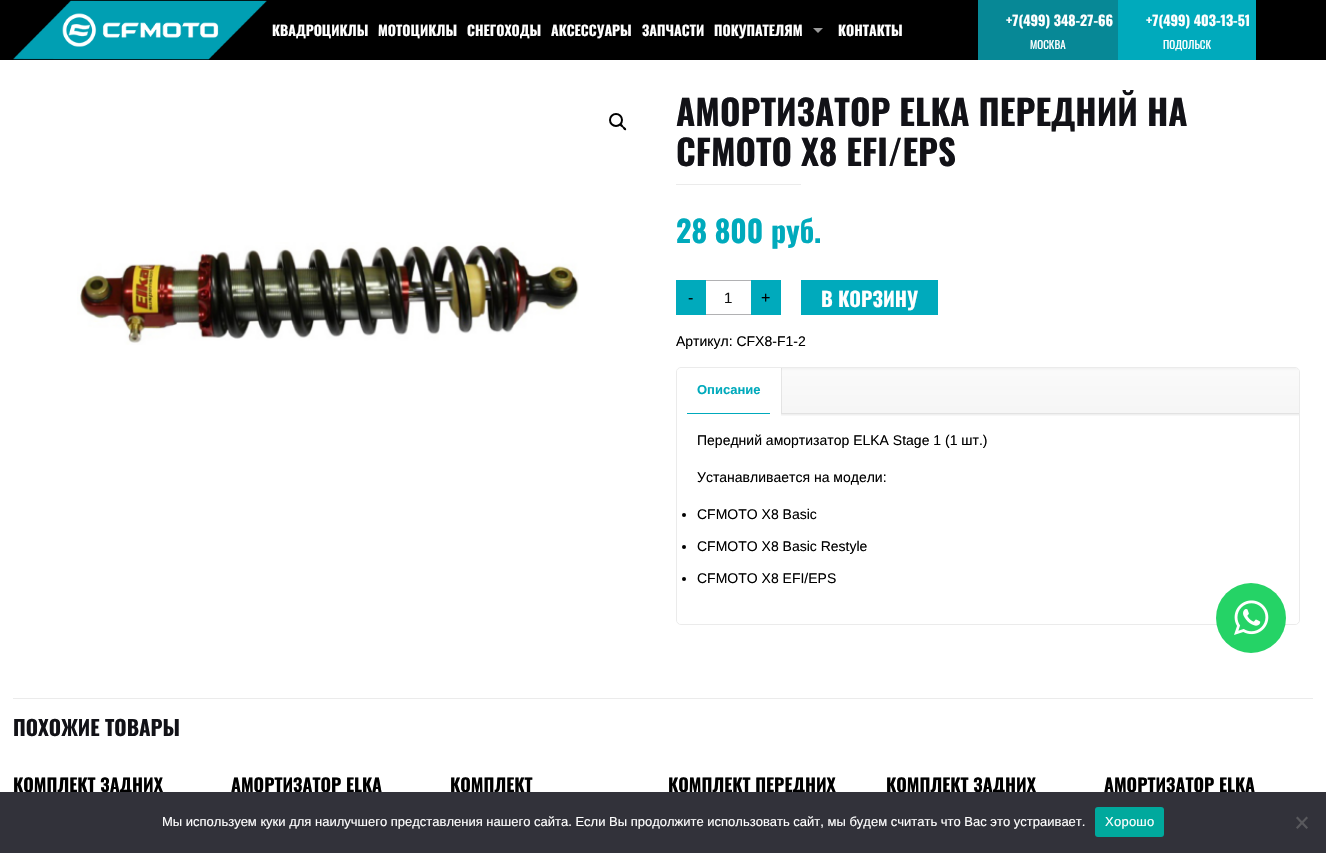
#include "include/core/SkBlurTypes.h"
#include "include/core/SkCanvas.h"
#include "include/core/SkData.h"
#include "include/core/SkFont.h"
#include "include/core/SkFontMgr.h"
#include "include/core/SkImage.h"
#include "include/core/SkMaskFilter.h"
#include "include/core/SkPaint.h"
#include "include/core/SkPathBuilder.h"
#include "include/core/SkTextBlob.h"
#include "include/effects/SkDashPathEffect.h"
#include "include/effects/SkGradientShader.h"
#include "include/utils/SkParsePath.h"

extern sk_sp<SkFontMgr> fontMgr;

void draw(SkCanvas* canvas) {
    SkPaint p;
    p.setAntiAlias(true);
    auto font = [&](const char* family, int weight, float size, bool italic = false) {
        SkFontStyle style(weight, SkFontStyle::kNormal_Width,
            italic ? SkFontStyle::kItalic_Slant : SkFontStyle::kUpright_Slant);
        SkFont result(fontMgr->matchFamilyStyle(family, style), size);
        result.setSubpixel(true);
        return result;
    };
    auto drawTracked = [&](const char* s, float x, float y, const SkFont& font, const SkPaint& ink, float letter, float word) {
        std::vector<SkGlyphID> glyphs(font.countText(s, strlen(s), SkTextEncoding::kUTF8));
        std::vector<float> xs(glyphs.size());
        font.textToGlyphs(s, strlen(s), SkTextEncoding::kUTF8, glyphs);
        font.getXPos(glyphs, xs, x);
        float extra = 0;
        for (size_t i = 0; i < glyphs.size(); i++) {
            xs[i] += extra;
            extra += letter + word * (glyphs[i] == font.unicharToGlyph(' '));
        }
        canvas->drawTextBlob(SkTextBlob::MakeFromPosHGlyphs(glyphs, xs, y, font), 0, 0, ink);
    };
    auto drawPhoto = [&](const char* path, float l, float t, float r, float b) {
        auto image = SkImages::DeferredFromEncodedData(SkData::MakeFromFileName(path));
        canvas->drawImageRect(image, SkRect::MakeLTRB(l, t, r, b), SkSamplingOptions());
    };
    canvas->clear(0xFFFFFFFF);
    p.setColor(0xFF000000);
    canvas->drawRect(SkRect::MakeLTRB(0, 0, 1326, 60), p);
    drawPhoto("media/1.png", 13, 0, 267, 60);
    auto font1 = font("Oswald", 700, 14);
    p.setColor(0xFFFFFFFF);
    {
        const struct { const char* s; float x, y; } items[] = {
            {"КВАДРОЦИКЛЫ", 272, 36},
            {"МОТОЦИКЛЫ", 378, 36},
            {"СНЕГОХОДЫ", 467, 36},
            {"АКСЕССУАРЫ", 551, 36},
            {"ЗАПЧАСТИ", 642, 36},
            {"ПОКУПАТЕЛЯМ", 714, 36},
        };
        for (auto [s, x, y] : items) {
            canvas->drawString(s, x, y, font1, p);
        }
    }
    p.setColor(0xFF999999);
    canvas->drawPath(SkPathBuilder().moveTo(813, 28).lineTo(823, 28).lineTo(818, 33).close().detach(), p);
    p.setColor(0xFFFFFFFF);
    canvas->drawString("КОНТАКТЫ", 838, 36, font1, p);
    p.setColor(0xFF078896);
    canvas->drawRect(SkRect::MakeLTRB(978, 0, 1118, 60), p);
    p.setColor(0xFFFFFFFF);
    canvas->drawString("+7(499) 348-27-66", 1006, 26, font1, p);
    auto font2 = font("Oswald", 400, 11);
    canvas->drawString("МОСКВА", 1030, 49, font2, p);
    p.setColor(0xFF00AABC);
    canvas->drawRect(SkRect::MakeLTRB(1118, 0, 1256, 60), p);
    p.setColor(0xFFFFFFFF);
    canvas->drawString("+7(499) 403-13-51", 1146, 26, font1, p);
    canvas->drawString("ПОДОЛЬСК", 1163, 49, font2, p);
    p.setStyle(SkPaint::kStroke_Style);
    p.setStrokeWidth(2);
    p.setColor(0xFF000000);
    canvas->drawCircle(616, 120, 6, p);
    p.setStyle(SkPaint::kFill_Style);
    canvas->drawPath(SkPathBuilder().moveTo(620, 124).cubicTo(621.5f, 123, 623, 125.5f, 623.5f, 126.5f).cubicTo(624.5f, 127, 627, 128.5f, 626, 130).cubicTo(624.5f, 131, 623, 128.5f, 622.5f, 127.5f).cubicTo(621.5f, 127, 619, 125.5f, 620, 124).close().detach(), p);
    drawPhoto("media/2.png", 77, 242, 579, 345);
    auto font3 = font("Oswald", 700, 35);
    p.setColor(0xFF121217);
    canvas->drawString("АМОРТИЗАТОР ELKA ПЕРЕДНИЙ НА", 676, 126, font3, p);
    canvas->drawString("CFMOTO X8 EFI/EPS", 676, 166, font3, p);
    p.setColor(0xFFEBEBEB);
    canvas->drawRect(SkRect::MakeLTRB(676, 184, 801, 185), p);
    auto font4 = font("Oswald", 700, 30);
    p.setColor(0xFF00AABC);
    canvas->drawString("28 800 руб.", 676, 243, font4, p);
    canvas->drawRect(SkRect::MakeLTRB(676, 280, 706, 315), p);
    auto font5 = font("Liberation Sans", 400, 16);
    p.setColor(0xFF000000);
    canvas->drawString("-", 688, 303, font5, p);
    p.setColor(0xFFB1B1B3);
    canvas->drawRect(SkRect::MakeLTRB(706, 280, 751, 281), p);
    canvas->drawRect(SkRect::MakeLTRB(706, 314, 751, 315), p);
    auto font6 = font("Liberation Sans", 400, 15);
    p.setColor(0xFF111111);
    canvas->drawString("1", 724, 303, font6, p);
    p.setColor(0xFF00AABC);
    canvas->drawRect(SkRect::MakeLTRB(751, 280, 781, 315), p);
    p.setColor(0xFF000000);
    canvas->drawString("+", 761, 303, font5, p);
    p.setColor(0xFF00AABC);
    canvas->drawRect(SkRect::MakeLTRB(801, 280, 938, 315), p);
    auto font7 = font("Oswald", 700, 20);
    p.setColor(0xFFFFFFFF);
    canvas->drawString("В КОРЗИНУ", 821, 307, font7, p);
    auto font8 = font("Liberation Sans", 400, 14);
    p.setColor(0xFF000000);
    canvas->drawString("Артикул: CFX8-F1-2", 676, 346, font8, p);
    p.setStyle(SkPaint::kStroke_Style);
    p.setStrokeWidth(1);
    p.setColor(0xFFEBEBEB);
    canvas->drawRoundRect(SkRect::MakeLTRB(676.5f, 367.5f, 1299.5f, 624.5f), 4.5f, 4.5f, p);
    drawPhoto("media/3.png", 677, 368, 1299, 413);
    p.setStyle(SkPaint::kFill_Style);
    p.setColor(0xFFE2E2E2);
    canvas->drawRect(SkRect::MakeLTRB(781, 413, 1299, 414), p);
    p.setColor(0x14000000);
    canvas->drawRect(SkRect::MakeLTRB(781, 368, 782, 413), p);
    p.setColor(0xFFFFFFFF);
    canvas->drawPath(SkPathBuilder().moveTo(681, 368).lineTo(781, 368).lineTo(781, 413).lineTo(677, 413).lineTo(677, 372).cubicTo(677, 370, 679, 368, 681, 368).close().detach(), p);
    auto font9 = font("Liberation Sans", 700, 13);
    p.setColor(0xFF00AABC);
    canvas->drawString("Описание", 697, 394, font9, p);
    canvas->drawRect(SkRect::MakeLTRB(687, 413, 770, 414), p);
    p.setColor(0xFFFFFFFF);
    canvas->drawPath(SkPathBuilder().moveTo(677, 414).lineTo(1299, 414).lineTo(1299, 620).cubicTo(1299, 622, 1297, 624, 1295, 624).lineTo(681, 624).cubicTo(679, 624, 677, 622, 677, 620).close().detach(), p);
    drawPhoto("media/4.png", 781, 414, 1299, 416);
    p.setColor(0xFF000000);
    canvas->drawString("Передний амортизатор ELKA Stage 1 (1 шт.)", 697, 445, font8, p);
    canvas->drawString("Устанавливается на модели:", 697, 482, font8, p);
    canvas->drawCircle(684, 515, 2, p);
    canvas->drawString("CFMOTO X8 Basic", 697, 519, font8, p);
    canvas->drawCircle(684, 547, 2, p);
    canvas->drawString("CFMOTO X8 Basic Restyle", 697, 551, font8, p);
    canvas->drawCircle(684, 579, 2, p);
    canvas->drawString("CFMOTO X8 EFI/EPS", 697, 583, font8, p);
    p.setColor(0xFFEBEBEB);
    canvas->drawRect(SkRect::MakeLTRB(13, 698, 1313, 699), p);
    auto font10 = font("Oswald", 700, 21);
    p.setColor(0xFF121217);
    canvas->drawString("ПОХОЖИЕ ТОВАРЫ", 13, 736, font10, p);
    auto font11 = font("Oswald", 700, 18);
    p.setColor(0xFF000000);
    {
        const struct { const char* s; float x, y; } items[] = {
            {"КОМПЛЕКТ ЗАДНИХ", 13, 792},
            {"АМОРТИЗАТОР ELKA", 231, 792},
            {"КОМПЛЕКТ", 450, 792},
            {"КОМПЛЕКТ ПЕРЕДНИХ", 668, 792},
            {"КОМПЛЕКТ ЗАДНИХ", 886, 792},
            {"АМОРТИЗАТОР ELKA", 1104, 792},
        };
        for (auto [s, x, y] : items) {
            canvas->drawString(s, x, y, font11, p);
        }
    }
    p.setColor(0xFF25D366);
    canvas->drawCircle(1251, 618, 35, p);
    drawPhoto("media/5.png", 1234, 600, 1269, 635);
    p.setColor(0xFF32323A);
    canvas->drawRect(SkRect::MakeLTRB(0, 792, 1326, 853), p);
    auto font12 = font("Liberation Sans", 400, 13);
    p.setColor(0xFFFFFFFF);
    canvas->drawString("Мы используем куки для наилучшего представления нашего сайта. Если Вы продолжите использовать сайт, мы будем считать что Вас это устраивает.", 162, 826, font12, p);
    p.setColor(0xFF00A99D);
    canvas->drawRoundRect(SkRect::MakeLTRB(1095, 807, 1164, 837), 3, 3, p);
    p.setColor(0xFFFFFFFF);
    drawTracked("Хорошо", 1105, 826, font12, p, 0.25f, 0);
    p.setColor(0xFF59595D);
    canvas->drawPath(SkPathBuilder().moveTo(1306.5f, 816.5f).lineTo(1308, 818).lineTo(1297.5f, 829).lineTo(1296, 827.5f).close().detach(), p);
    canvas->drawPath(SkPathBuilder().moveTo(1296, 818).lineTo(1297.5f, 816.5f).lineTo(1308, 827.5f).lineTo(1306.5f, 829).close().detach(), p);
}
